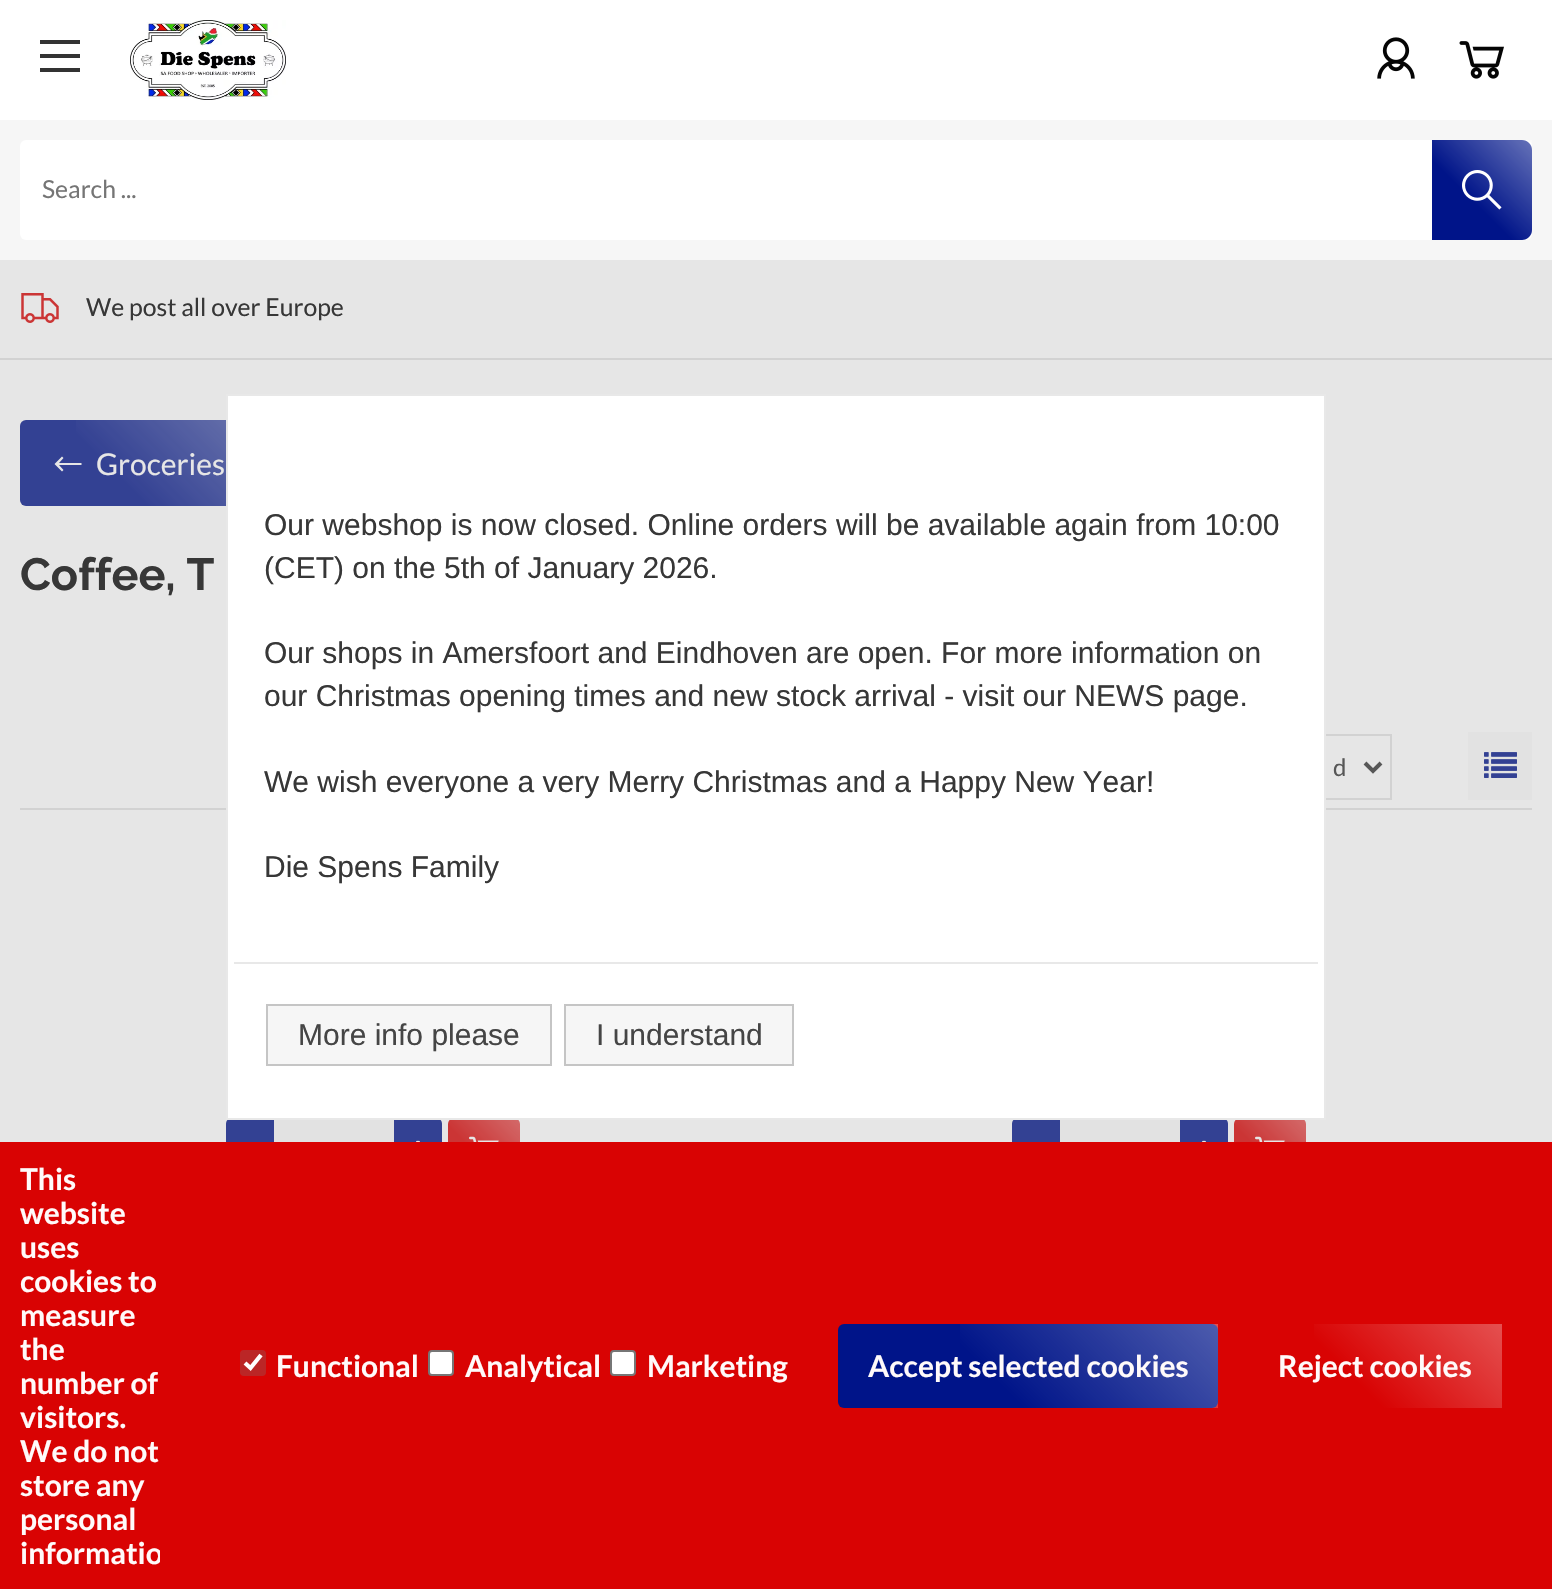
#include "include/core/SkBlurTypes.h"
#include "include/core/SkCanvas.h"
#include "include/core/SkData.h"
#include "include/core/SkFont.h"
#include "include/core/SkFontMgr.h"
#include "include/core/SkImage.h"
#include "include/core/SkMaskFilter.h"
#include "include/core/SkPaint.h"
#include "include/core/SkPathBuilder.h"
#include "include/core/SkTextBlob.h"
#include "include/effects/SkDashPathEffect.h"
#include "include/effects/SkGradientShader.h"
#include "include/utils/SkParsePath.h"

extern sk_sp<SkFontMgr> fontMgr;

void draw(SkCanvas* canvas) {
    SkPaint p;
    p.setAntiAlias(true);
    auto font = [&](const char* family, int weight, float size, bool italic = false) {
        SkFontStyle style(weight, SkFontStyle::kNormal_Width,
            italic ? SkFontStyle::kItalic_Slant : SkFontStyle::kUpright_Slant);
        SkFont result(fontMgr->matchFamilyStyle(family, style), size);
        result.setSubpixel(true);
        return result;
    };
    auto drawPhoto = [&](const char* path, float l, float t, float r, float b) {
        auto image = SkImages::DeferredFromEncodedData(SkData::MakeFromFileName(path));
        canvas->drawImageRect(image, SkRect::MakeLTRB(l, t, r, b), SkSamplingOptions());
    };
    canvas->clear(0xFFE6E6E6);
    {
        const struct { float l, t, r, b; SkColor color; } items[] = {
            {0, 0, 1552, 120, 0xFFFFFFFF},
            {40, 40, 80, 44, 0xFF333333},
            {40, 54, 80, 58, 0xFF333333},
            {40, 68, 80, 72, 0xFF333333},
        };
        for (auto [l, t, r, b, color] : items) {
            p.setColor(color);
            canvas->drawRect(SkRect::MakeLTRB(l, t, r, b), p);
        }
    }
    drawPhoto("media/1.png", 130, 20, 286, 100);
    drawPhoto("media/2.png", 1377, 37, 1415, 79);
    drawPhoto("media/3.png", 1459, 41, 1504, 79);
    p.setColor(0xFFF6F6F6);
    canvas->drawRect(SkRect::MakeLTRB(0, 120, 1552, 260), p);
    p.setColor(0xFFFFFFFF);
    canvas->drawRoundRect(SkRect::MakeLTRB(20, 140, 1532, 240), 6, 6, p);
    auto font1 = font("Lato", 400, 24.75f);
    p.setColor(0xFF757575);
    canvas->drawString("Search ...", 42, 198, font1, p);
    p.setColor(0xFF001489);
    canvas->drawPath(SkPathBuilder().moveTo(1432, 140).lineTo(1522, 140).cubicTo(1527.5f, 140, 1532, 144.5f, 1532, 150).lineTo(1532, 230).cubicTo(1532, 235.5f, 1527.5f, 240, 1522, 240).lineTo(1432, 240).close().detach(), p);
    {
        const SkColor colors[] = {0x66FFFFFF, 0x00FFFFFF};
        const float stops[] = {0, 0.6f};
        const SkPoint ends[] = {{1532, 140}, {1432, 240}};
        p.setShader(SkGradientShader::MakeLinear(ends, colors, stops, 2, SkTileMode::kClamp));
        p.setAlpha(255);
    }
    canvas->drawRect(SkRect::MakeLTRB(1432, 140, 1532, 240), p);
    drawPhoto("media/4.png", 1462, 170, 1502, 210);
    p.setShader(nullptr);
    p.setColor(0xFFD2D2D2);
    canvas->drawRect(SkRect::MakeLTRB(0, 358, 1552, 360), p);
    drawPhoto("media/5.png", 21, 293, 59, 323);
    p.setColor(0xFF373737);
    canvas->drawString("We post all over Europe", 86, 316, font1, p);
    p.setColor(0xFF334193);
    canvas->drawRoundRect(SkRect::MakeLTRB(20, 420, 254, 506), 6, 6, p);
    p.setColor(0xFFE6E6E6);
    canvas->drawPath(SkPathBuilder().moveTo(62, 456.5f).lineTo(54.5f, 464).lineTo(62, 471.5f).lineTo(63.5f, 470).lineTo(59, 465).lineTo(81.5f, 465).lineTo(81.5f, 463).lineTo(59, 463).lineTo(63.5f, 458).close().detach(), p);
    {
        const SkColor colors[] = {0x4DE6E6E6, 0x00E6E6E6};
        const float stops[] = {0, 0.6f};
        const SkPoint ends[] = {{217, 383}, {57, 543}};
        p.setShader(SkGradientShader::MakeLinear(ends, colors, stops, 2, SkTileMode::kClamp));
        p.setAlpha(255);
    }
    canvas->drawRect(SkRect::MakeLTRB(76, 420, 226, 506), p);
    auto font2 = font("Lato", 400, 30);
    p.setShader(nullptr);
    p.setColor(0xFFE6E6E6);
    canvas->drawString("Groceries", 96, 475, font2, p);
    auto font3 = font("Raleway", 700, 45);
    p.setColor(0xFF373737);
    canvas->drawString("Coffee, T", 20, 590, font3, p);
    p.setColor(0xFFD2D2D2);
    canvas->drawRect(SkRect::MakeLTRB(20, 808, 1532, 810), p);
    p.setStyle(SkPaint::kStroke_Style);
    p.setStrokeWidth(2);
    canvas->drawRect(SkRect::MakeLTRB(1171, 735, 1391, 799), p);
    p.setStrokeWidth(4);
    p.setColor(0xFF575757);
    canvas->drawPath(SkPathBuilder().moveTo(1365, 763).lineTo(1373, 771).lineTo(1381, 763).detach(), p);
    auto font4 = font("Lato", 400, 24);
    p.setStyle(SkPaint::kFill_Style);
    canvas->drawString("d", 1333, 776, font4, p);
    p.setColor(0xFFE2E2E2);
    canvas->drawRect(SkRect::MakeLTRB(1468, 732, 1532, 800), p);
    drawPhoto("media/6.png", 1484, 752, 1517, 778);
    p.setColor(0xFF334193);
    canvas->drawPath(SkPathBuilder().moveTo(232, 1118).lineTo(274, 1118).lineTo(274, 1178).lineTo(232, 1178).cubicTo(228.5f, 1178, 226, 1175.5f, 226, 1172).lineTo(226, 1124).cubicTo(226, 1120.5f, 228.5f, 1118, 232, 1118).close().detach(), p);
    p.setColor(0xFFE2E2E2);
    canvas->drawRect(SkRect::MakeLTRB(274, 1120, 394, 1142), p);
    p.setColor(0xFF334193);
    canvas->drawPath(SkPathBuilder().moveTo(394, 1118).lineTo(436, 1118).cubicTo(439.5f, 1118, 442, 1120.5f, 442, 1124).lineTo(442, 1172).cubicTo(442, 1175.5f, 439.5f, 1178, 436, 1178).lineTo(394, 1178).close().detach(), p);
    drawPhoto("media/7.png", 416, 1140, 420, 1142);
    p.setColor(0xFFCB3535);
    canvas->drawRoundRect(SkRect::MakeLTRB(448, 1118, 520, 1178), 6, 6, p);
    drawPhoto("media/8.png", 469, 1136, 499, 1142);
    {
        const SkColor colors[] = {0x4DE6E6E6, 0x00E6E6E6};
        const float stops[] = {0, 0.6f};
        const SkPoint ends[] = {{517, 1115}, {451, 1181}};
        p.setShader(SkGradientShader::MakeLinear(ends, colors, stops, 2, SkTileMode::kClamp));
        p.setAlpha(255);
    }
    canvas->drawRect(SkRect::MakeLTRB(449, 1120, 520, 1142), p);
    p.setShader(nullptr);
    p.setColor(0xFF334193);
    canvas->drawPath(SkPathBuilder().moveTo(1018, 1118).lineTo(1060, 1118).lineTo(1060, 1178).lineTo(1018, 1178).cubicTo(1014.5f, 1178, 1012, 1175.5f, 1012, 1172).lineTo(1012, 1124).cubicTo(1012, 1120.5f, 1014.5f, 1118, 1018, 1118).close().detach(), p);
    p.setColor(0xFFE2E2E2);
    canvas->drawRect(SkRect::MakeLTRB(1060, 1120, 1180, 1142), p);
    p.setColor(0xFF334193);
    canvas->drawPath(SkPathBuilder().moveTo(1180, 1118).lineTo(1222, 1118).cubicTo(1225.5f, 1118, 1228, 1120.5f, 1228, 1124).lineTo(1228, 1172).cubicTo(1228, 1175.5f, 1225.5f, 1178, 1222, 1178).lineTo(1180, 1178).close().detach(), p);
    drawPhoto("media/7.png", 1202, 1140, 1206, 1142);
    p.setColor(0xFFCB3535);
    canvas->drawRoundRect(SkRect::MakeLTRB(1234, 1118, 1306, 1178), 6, 6, p);
    drawPhoto("media/8.png", 1255, 1136, 1285, 1142);
    {
        const SkColor colors[] = {0x4DE6E6E6, 0x00E6E6E6};
        const float stops[] = {0, 0.6f};
        const SkPoint ends[] = {{1303, 1115}, {1237, 1181}};
        p.setShader(SkGradientShader::MakeLinear(ends, colors, stops, 2, SkTileMode::kClamp));
        p.setAlpha(255);
    }
    canvas->drawRect(SkRect::MakeLTRB(1235, 1120, 1306, 1142), p);
    p.setShader(nullptr);
    p.setColor(0xFFFFFFFF);
    canvas->drawRect(SkRect::MakeLTRB(227, 395, 1325, 1119), p);
    p.setStyle(SkPaint::kStroke_Style);
    p.setStrokeWidth(2);
    p.setColor(0xFFE8E8E8);
    canvas->drawRect(SkRect::MakeLTRB(227, 395, 1325, 1119), p);
    auto font5 = font("Liberation Sans", 400, 30);
    p.setStyle(SkPaint::kFill_Style);
    p.setColor(0xFF373737);
    {
        const struct { const char* s; float x, y; } items[] = {
            {"Our webshop is now closed. Online orders will be available again from 10:00", 264, 535},
            {"(CET) on the 5th of January 2026.", 264, 578},
            {"Our shops in Amersfoort and Eindhoven are open. For more information on", 264, 663},
            {"our Christmas opening times and new stock arrival - visit our NEWS page.", 264, 706},
            {"We wish everyone a very Merry Christmas and a Happy New Year!", 264, 792},
            {"Die Spens Family", 264, 877},
        };
        for (auto [s, x, y] : items) {
            canvas->drawString(s, x, y, font5, p);
        }
    }
    p.setColor(0xFFE8E8E8);
    canvas->drawRect(SkRect::MakeLTRB(234, 962, 1318, 964), p);
    p.setColor(0xFFF6F6F6);
    canvas->drawRect(SkRect::MakeLTRB(267, 1005, 551, 1065), p);
    p.setStyle(SkPaint::kStroke_Style);
    p.setColor(0xFFC5C5C5);
    canvas->drawRect(SkRect::MakeLTRB(267, 1005, 551, 1065), p);
    p.setStyle(SkPaint::kFill_Style);
    p.setColor(0xFF454545);
    canvas->drawString("More info please", 298, 1045, font5, p);
    p.setColor(0xFFF6F6F6);
    canvas->drawRect(SkRect::MakeLTRB(565, 1005, 793, 1065), p);
    p.setStyle(SkPaint::kStroke_Style);
    p.setColor(0xFFC5C5C5);
    canvas->drawRect(SkRect::MakeLTRB(565, 1005, 793, 1065), p);
    p.setStyle(SkPaint::kFill_Style);
    p.setColor(0xFF454545);
    canvas->drawString("I understand", 596, 1045, font5, p);
    p.setColor(0xFFD90303);
    canvas->drawRect(SkRect::MakeLTRB(0, 1142, 1552, 1589), p);
    auto font6 = font("Lato", 700, 30);
    p.setColor(0xFFFFFAFA);
    {
        const struct { const char* s; float x, y; } items[] = {
            {"This", 20, 1190},
            {"website", 20, 1224},
            {"uses", 20, 1258},
            {"cookies to", 20, 1292},
            {"measure", 20, 1326},
            {"the", 20, 1360},
            {"number of", 20, 1394},
            {"visitors.", 20, 1428},
            {"We do not", 20, 1462},
            {"store any", 20, 1496},
            {"personal", 20, 1530},
        };
        for (auto [s, x, y] : items) {
            canvas->drawString(s, x, y, font6, p);
        }
    }
    canvas->save();
    canvas->clipRect(SkRect::MakeLTRB(20, 1162, 160, 1570));
    canvas->drawString("informatio", 20, 1564, font6, p);
    canvas->restore();
    p.setColor(0xFFBB2626);
    canvas->drawRoundRect(SkRect::MakeLTRB(240, 1350, 266, 1376), 4, 4, p);
    p.setStyle(SkPaint::kStroke_Style);
    p.setStrokeWidth(4.2f);
    p.setColor(0xFFFFFFFF);
    canvas->drawPath(SkPathBuilder().moveTo(245, 1363).lineTo(250.5f, 1368).lineTo(261, 1355).detach(), p);
    p.setStyle(SkPaint::kFill_Style);
    p.setColor(0xFFFFFAFA);
    canvas->drawString("Functional", 276, 1377, font6, p);
    p.setColor(0xFFFFFFFF);
    canvas->drawRoundRect(SkRect::MakeLTRB(429, 1351, 453, 1375), 3, 3, p);
    p.setStyle(SkPaint::kStroke_Style);
    p.setStrokeWidth(2);
    p.setColor(0xFF767676);
    canvas->drawRoundRect(SkRect::MakeLTRB(429, 1351, 453, 1375), 3, 3, p);
    p.setStyle(SkPaint::kFill_Style);
    p.setColor(0xFFFFFAFA);
    canvas->drawString("Analytical", 465, 1377, font6, p);
    p.setColor(0xFFFFFFFF);
    canvas->drawRoundRect(SkRect::MakeLTRB(611, 1351, 635, 1375), 3, 3, p);
    p.setStyle(SkPaint::kStroke_Style);
    p.setColor(0xFF767676);
    canvas->drawRoundRect(SkRect::MakeLTRB(611, 1351, 635, 1375), 3, 3, p);
    p.setStyle(SkPaint::kFill_Style);
    p.setColor(0xFFFFFAFA);
    canvas->drawString("Marketing", 647, 1377, font6, p);
    p.setColor(0xFF001489);
    canvas->drawRoundRect(SkRect::MakeLTRB(838, 1324, 1218, 1408), 6, 6, p);
    {
        const SkColor colors[] = {0x4DFFFFFF, 0x00FFFFFF};
        const float stops[] = {0, 0.6f};
        const SkPoint ends[] = {{1144, 1250}, {912, 1482}};
        p.setShader(SkGradientShader::MakeLinear(ends, colors, stops, 2, SkTileMode::kClamp));
        p.setAlpha(255);
    }
    canvas->drawRect(SkRect::MakeLTRB(960, 1324, 1218, 1408), p);
    p.setShader(nullptr);
    p.setColor(0xFFFFFAFA);
    canvas->drawString("Accept selected cookies", 868, 1377, font6, p);
    {
        const SkColor colors[] = {0x4DFFFFFF, 0x00FFFFFF};
        const float stops[] = {0, 0.6f};
        const SkPoint ends[] = {{1460, 1282}, {1291, 1451}};
        p.setShader(SkGradientShader::MakeLinear(ends, colors, stops, 2, SkTileMode::kClamp));
        p.setAlpha(255);
    }
    canvas->drawRect(SkRect::MakeLTRB(1314, 1324, 1502, 1408), p);
    p.setShader(nullptr);
    p.setColor(0xFFFFFAFA);
    canvas->drawString("Reject cookies", 1278, 1377, font6, p);
}
